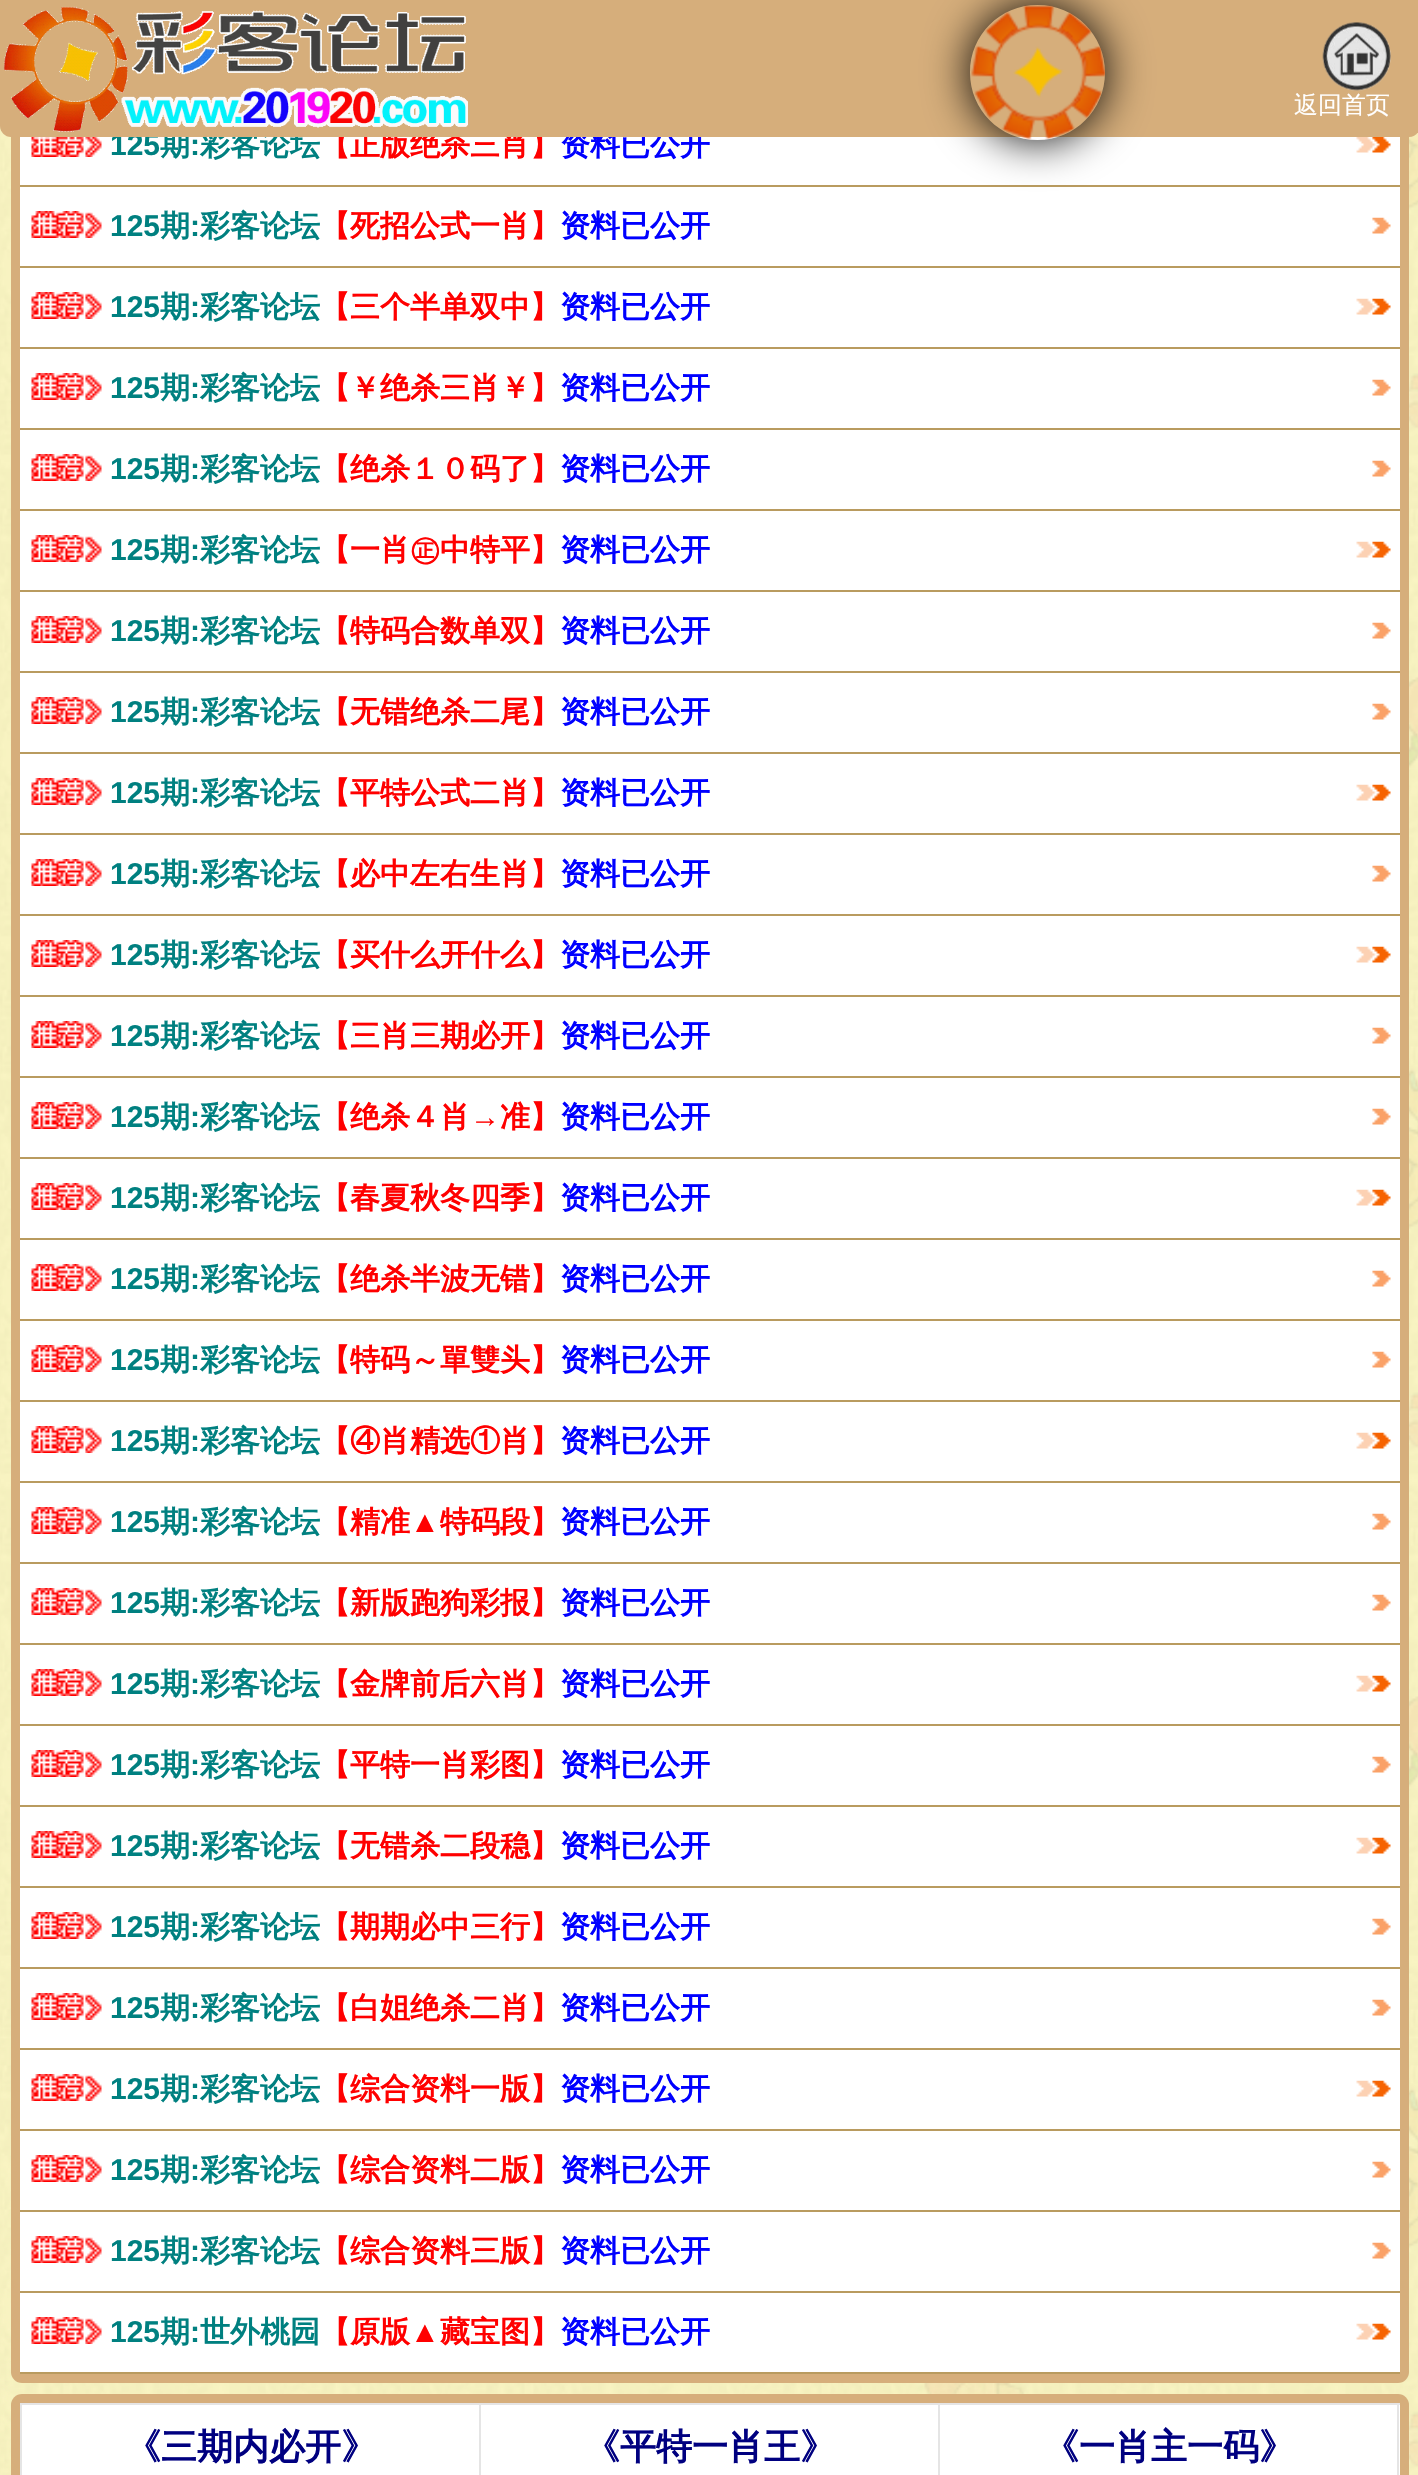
#include "include/core/SkBlurTypes.h"
#include "include/core/SkCanvas.h"
#include "include/core/SkData.h"
#include "include/core/SkFont.h"
#include "include/core/SkFontMgr.h"
#include "include/core/SkImage.h"
#include "include/core/SkMaskFilter.h"
#include "include/core/SkPaint.h"
#include "include/core/SkPathBuilder.h"
#include "include/core/SkTextBlob.h"
#include "include/effects/SkDashPathEffect.h"
#include "include/effects/SkGradientShader.h"
#include "include/utils/SkParsePath.h"

extern sk_sp<SkFontMgr> fontMgr;

void draw(SkCanvas* canvas) {
    SkPaint p;
    p.setAntiAlias(true);
    auto font = [&](const char* family, int weight, float size, bool italic = false) {
        SkFontStyle style(weight, SkFontStyle::kNormal_Width,
            italic ? SkFontStyle::kItalic_Slant : SkFontStyle::kUpright_Slant);
        SkFont result(fontMgr->matchFamilyStyle(family, style), size);
        result.setSubpixel(true);
        return result;
    };
    auto drawPhoto = [&](const char* path, float l, float t, float r, float b) {
        auto image = SkImages::DeferredFromEncodedData(SkData::MakeFromFileName(path));
        canvas->drawImageRect(image, SkRect::MakeLTRB(l, t, r, b), SkSamplingOptions());
    };
    canvas->clear(0xFFFFFFFF);
    drawPhoto("media/1.png", 0, 126, 1418, 2475);
    p.setColor(0xFFD6AE7B);
    canvas->drawRoundRect(SkRect::MakeLTRB(11, -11, 1409, 2383), 11, 11, p);
    p.setColor(0xFFFFFFFF);
    canvas->drawRect(SkRect::MakeLTRB(20, 137, 1400, 2372), p);
    auto font1 = font("Liberation Sans", 700, 30);
    p.setColor(0xFF008080);
    canvas->drawString("125", 110, 155, font1, p);
    auto font2 = font("WenQuanYi Zen Hei", 700, 30);
    canvas->drawString("期", 160, 155, font2, p);
    canvas->drawString("彩客论坛", 200, 155, font2, p);
    p.setColor(0xFFFF0000);
    canvas->drawString("【正版绝杀三肖】", 320, 155, font2, p);
    p.setColor(0xFF0000FF);
    canvas->drawString("资料已公开", 560, 155, font2, p);
    p.setColor(0xFFD6AE7B);
    canvas->drawPath(SkPathBuilder().moveTo(0, 0).lineTo(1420, 0).lineTo(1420, 126).cubicTo(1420, 132, 1415, 137, 1409, 137).lineTo(11, 137).cubicTo(5, 137, 0, 132, 0, 126).close().detach(), p);
    p.setColor(0xFFB99B5F);
    canvas->drawRect(SkRect::MakeLTRB(20, 185, 1400, 187), p);
    canvas->save();
    canvas->clipPath(SkPathBuilder(SkPathFillType::kEvenOdd).moveTo(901, 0).lineTo(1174, 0).lineTo(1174, 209).lineTo(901, 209).close().moveTo(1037.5f, 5).cubicTo(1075, 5, 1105, 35, 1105, 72.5f).cubicTo(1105, 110, 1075, 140, 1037.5f, 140).cubicTo(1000, 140, 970, 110, 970, 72.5f).cubicTo(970, 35, 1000, 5, 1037.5f, 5).close().detach(), true);
    p.setColor(0xFF000000);
    p.setMaskFilter(SkMaskFilter::MakeBlur(kNormal_SkBlurStyle, 22.5f));
    canvas->drawRoundRect(SkRect::MakeLTRB(970, 5, 1105, 140), 67.5f, 67.5f, p);
    p.setMaskFilter(nullptr);
    canvas->restore();
    drawPhoto("media/2.png", 971, 5, 1105, 140);
    drawPhoto("media/3.png", 3, 6, 468, 132);
    drawPhoto("media/4.png", 1322, 22, 1391, 91);
    auto font3 = font("WenQuanYi Zen Hei", 500, 24);
    p.setColor(0xFFFFFFFF);
    canvas->drawString("返回首页", 1294, 113, font3, p);
    drawPhoto("media/5.png", 31, 137, 102, 157);
    drawPhoto("media/6.png", 1356, 137, 1391, 153);
    p.setColor(0xFF008080);
    canvas->drawString(":", 190, 155, font1, p);
    drawPhoto("media/7.png", 31, 211, 102, 238);
    p.setColor(0xFFB99B5F);
    canvas->drawRect(SkRect::MakeLTRB(20, 266, 1400, 268), p);
    drawPhoto("media/8.png", 1372, 217, 1391, 234);
    p.setColor(0xFF008080);
    canvas->drawString("125", 110, 236, font1, p);
    canvas->drawString("期", 160, 236, font2, p);
    canvas->drawString(":", 190, 236, font1, p);
    canvas->drawString("彩客论坛", 200, 236, font2, p);
    p.setColor(0xFFFF0000);
    canvas->drawString("【死招公式一肖】", 320, 236, font2, p);
    p.setColor(0xFF0000FF);
    canvas->drawString("资料已公开", 560, 236, font2, p);
    drawPhoto("media/9.png", 31, 292, 102, 319);
    p.setColor(0xFFB99B5F);
    canvas->drawRect(SkRect::MakeLTRB(20, 347, 1400, 349), p);
    drawPhoto("media/10.png", 1356, 298, 1391, 315);
    p.setColor(0xFF008080);
    canvas->drawString("125", 110, 317, font1, p);
    canvas->drawString("期", 160, 317, font2, p);
    canvas->drawString(":", 190, 317, font1, p);
    canvas->drawString("彩客论坛", 200, 317, font2, p);
    p.setColor(0xFFFF0000);
    canvas->drawString("【三个半单双中】", 320, 317, font2, p);
    p.setColor(0xFF0000FF);
    canvas->drawString("资料已公开", 560, 317, font2, p);
    drawPhoto("media/7.png", 31, 373, 102, 400);
    p.setColor(0xFFB99B5F);
    canvas->drawRect(SkRect::MakeLTRB(20, 428, 1400, 430), p);
    drawPhoto("media/8.png", 1372, 379, 1391, 396);
    p.setColor(0xFF008080);
    canvas->drawString("125", 110, 398, font1, p);
    canvas->drawString("期", 160, 398, font2, p);
    canvas->drawString(":", 190, 398, font1, p);
    canvas->drawString("彩客论坛", 200, 398, font2, p);
    p.setColor(0xFFFF0000);
    canvas->drawString("【￥绝杀三肖￥】", 320, 398, font2, p);
    p.setColor(0xFF0000FF);
    canvas->drawString("资料已公开", 560, 398, font2, p);
    drawPhoto("media/7.png", 31, 454, 102, 481);
    p.setColor(0xFFB99B5F);
    canvas->drawRect(SkRect::MakeLTRB(20, 509, 1400, 511), p);
    drawPhoto("media/8.png", 1372, 460, 1391, 477);
    p.setColor(0xFF008080);
    canvas->drawString("125", 110, 479, font1, p);
    canvas->drawString("期", 160, 479, font2, p);
    canvas->drawString(":", 190, 479, font1, p);
    canvas->drawString("彩客论坛", 200, 479, font2, p);
    p.setColor(0xFFFF0000);
    canvas->drawString("【绝杀１０码了】", 320, 479, font2, p);
    p.setColor(0xFF0000FF);
    canvas->drawString("资料已公开", 560, 479, font2, p);
    drawPhoto("media/7.png", 31, 535, 102, 562);
    p.setColor(0xFFB99B5F);
    canvas->drawRect(SkRect::MakeLTRB(20, 590, 1400, 592), p);
    drawPhoto("media/10.png", 1356, 541, 1391, 558);
    p.setColor(0xFF008080);
    canvas->drawString("125", 110, 560, font1, p);
    canvas->drawString("期", 160, 560, font2, p);
    canvas->drawString(":", 190, 560, font1, p);
    canvas->drawString("彩客论坛", 200, 560, font2, p);
    p.setColor(0xFFFF0000);
    canvas->drawString("【一肖㊣中特平】", 320, 560, font2, p);
    p.setColor(0xFF0000FF);
    canvas->drawString("资料已公开", 560, 560, font2, p);
    drawPhoto("media/7.png", 31, 616, 102, 643);
    p.setColor(0xFFB99B5F);
    canvas->drawRect(SkRect::MakeLTRB(20, 671, 1400, 673), p);
    drawPhoto("media/8.png", 1372, 622, 1391, 639);
    p.setColor(0xFF008080);
    canvas->drawString("125", 110, 641, font1, p);
    canvas->drawString("期", 160, 641, font2, p);
    canvas->drawString(":", 190, 641, font1, p);
    canvas->drawString("彩客论坛", 200, 641, font2, p);
    p.setColor(0xFFFF0000);
    canvas->drawString("【特码合数单双】", 320, 641, font2, p);
    p.setColor(0xFF0000FF);
    canvas->drawString("资料已公开", 560, 641, font2, p);
    drawPhoto("media/7.png", 31, 697, 102, 724);
    p.setColor(0xFFB99B5F);
    canvas->drawRect(SkRect::MakeLTRB(20, 752, 1400, 754), p);
    drawPhoto("media/8.png", 1372, 703, 1391, 720);
    p.setColor(0xFF008080);
    canvas->drawString("125", 110, 722, font1, p);
    canvas->drawString("期", 160, 722, font2, p);
    canvas->drawString(":", 190, 722, font1, p);
    canvas->drawString("彩客论坛", 200, 722, font2, p);
    p.setColor(0xFFFF0000);
    canvas->drawString("【无错绝杀二尾】", 320, 722, font2, p);
    p.setColor(0xFF0000FF);
    canvas->drawString("资料已公开", 560, 722, font2, p);
    drawPhoto("media/7.png", 31, 778, 102, 805);
    p.setColor(0xFFB99B5F);
    canvas->drawRect(SkRect::MakeLTRB(20, 833, 1400, 835), p);
    drawPhoto("media/10.png", 1356, 784, 1391, 801);
    p.setColor(0xFF008080);
    canvas->drawString("125", 110, 803, font1, p);
    canvas->drawString("期", 160, 803, font2, p);
    canvas->drawString(":", 190, 803, font1, p);
    canvas->drawString("彩客论坛", 200, 803, font2, p);
    p.setColor(0xFFFF0000);
    canvas->drawString("【平特公式二肖】", 320, 803, font2, p);
    p.setColor(0xFF0000FF);
    canvas->drawString("资料已公开", 560, 803, font2, p);
    drawPhoto("media/7.png", 31, 859, 102, 886);
    p.setColor(0xFFB99B5F);
    canvas->drawRect(SkRect::MakeLTRB(20, 914, 1400, 916), p);
    drawPhoto("media/8.png", 1372, 865, 1391, 882);
    p.setColor(0xFF008080);
    canvas->drawString("125", 110, 884, font1, p);
    canvas->drawString("期", 160, 884, font2, p);
    canvas->drawString(":", 190, 884, font1, p);
    canvas->drawString("彩客论坛", 200, 884, font2, p);
    p.setColor(0xFFFF0000);
    canvas->drawString("【必中左右生肖】", 320, 884, font2, p);
    p.setColor(0xFF0000FF);
    canvas->drawString("资料已公开", 560, 884, font2, p);
    drawPhoto("media/7.png", 31, 940, 102, 967);
    p.setColor(0xFFB99B5F);
    canvas->drawRect(SkRect::MakeLTRB(20, 995, 1400, 997), p);
    drawPhoto("media/10.png", 1356, 946, 1391, 963);
    p.setColor(0xFF008080);
    canvas->drawString("125", 110, 965, font1, p);
    canvas->drawString("期", 160, 965, font2, p);
    canvas->drawString(":", 190, 965, font1, p);
    canvas->drawString("彩客论坛", 200, 965, font2, p);
    p.setColor(0xFFFF0000);
    canvas->drawString("【买什么开什么】", 320, 965, font2, p);
    p.setColor(0xFF0000FF);
    canvas->drawString("资料已公开", 560, 965, font2, p);
    drawPhoto("media/7.png", 31, 1021, 102, 1048);
    p.setColor(0xFFB99B5F);
    canvas->drawRect(SkRect::MakeLTRB(20, 1076, 1400, 1078), p);
    drawPhoto("media/8.png", 1372, 1027, 1391, 1044);
    p.setColor(0xFF008080);
    canvas->drawString("125", 110, 1046, font1, p);
    canvas->drawString("期", 160, 1046, font2, p);
    canvas->drawString(":", 190, 1046, font1, p);
    canvas->drawString("彩客论坛", 200, 1046, font2, p);
    p.setColor(0xFFFF0000);
    canvas->drawString("【三肖三期必开】", 320, 1046, font2, p);
    p.setColor(0xFF0000FF);
    canvas->drawString("资料已公开", 560, 1046, font2, p);
    drawPhoto("media/7.png", 31, 1102, 102, 1129);
    p.setColor(0xFFB99B5F);
    canvas->drawRect(SkRect::MakeLTRB(20, 1157, 1400, 1159), p);
    drawPhoto("media/8.png", 1372, 1108, 1391, 1125);
    p.setColor(0xFF008080);
    canvas->drawString("125", 110, 1127, font1, p);
    canvas->drawString("期", 160, 1127, font2, p);
    canvas->drawString(":", 190, 1127, font1, p);
    canvas->drawString("彩客论坛", 200, 1127, font2, p);
    p.setColor(0xFFFF0000);
    canvas->drawString("【绝杀４肖", 320, 1127, font2, p);
    canvas->drawString("→", 470, 1127, font1, p);
    canvas->drawString("准】", 500, 1127, font2, p);
    p.setColor(0xFF0000FF);
    canvas->drawString("资料已公开", 560, 1127, font2, p);
    drawPhoto("media/7.png", 31, 1183, 102, 1210);
    p.setColor(0xFFB99B5F);
    canvas->drawRect(SkRect::MakeLTRB(20, 1238, 1400, 1240), p);
    drawPhoto("media/10.png", 1356, 1189, 1391, 1206);
    p.setColor(0xFF008080);
    canvas->drawString("125", 110, 1208, font1, p);
    canvas->drawString("期", 160, 1208, font2, p);
    canvas->drawString(":", 190, 1208, font1, p);
    canvas->drawString("彩客论坛", 200, 1208, font2, p);
    p.setColor(0xFFFF0000);
    canvas->drawString("【春夏秋冬四季】", 320, 1208, font2, p);
    p.setColor(0xFF0000FF);
    canvas->drawString("资料已公开", 560, 1208, font2, p);
    drawPhoto("media/7.png", 31, 1264, 102, 1291);
    p.setColor(0xFFB99B5F);
    canvas->drawRect(SkRect::MakeLTRB(20, 1319, 1400, 1321), p);
    drawPhoto("media/8.png", 1372, 1270, 1391, 1287);
    p.setColor(0xFF008080);
    canvas->drawString("125", 110, 1289, font1, p);
    canvas->drawString("期", 160, 1289, font2, p);
    canvas->drawString(":", 190, 1289, font1, p);
    canvas->drawString("彩客论坛", 200, 1289, font2, p);
    p.setColor(0xFFFF0000);
    canvas->drawString("【绝杀半波无错】", 320, 1289, font2, p);
    p.setColor(0xFF0000FF);
    canvas->drawString("资料已公开", 560, 1289, font2, p);
    drawPhoto("media/7.png", 31, 1345, 102, 1372);
    p.setColor(0xFFB99B5F);
    canvas->drawRect(SkRect::MakeLTRB(20, 1400, 1400, 1402), p);
    drawPhoto("media/8.png", 1372, 1351, 1391, 1368);
    p.setColor(0xFF008080);
    canvas->drawString("125", 110, 1370, font1, p);
    canvas->drawString("期", 160, 1370, font2, p);
    canvas->drawString(":", 190, 1370, font1, p);
    canvas->drawString("彩客论坛", 200, 1370, font2, p);
    p.setColor(0xFFFF0000);
    canvas->drawString("【特码～單雙头】", 320, 1370, font2, p);
    p.setColor(0xFF0000FF);
    canvas->drawString("资料已公开", 560, 1370, font2, p);
    drawPhoto("media/7.png", 31, 1426, 102, 1453);
    p.setColor(0xFFB99B5F);
    canvas->drawRect(SkRect::MakeLTRB(20, 1481, 1400, 1483), p);
    drawPhoto("media/10.png", 1356, 1432, 1391, 1449);
    p.setColor(0xFF008080);
    canvas->drawString("125", 110, 1451, font1, p);
    canvas->drawString("期", 160, 1451, font2, p);
    canvas->drawString(":", 190, 1451, font1, p);
    canvas->drawString("彩客论坛", 200, 1451, font2, p);
    p.setColor(0xFFFF0000);
    canvas->drawString("【④肖精选①肖】", 320, 1451, font2, p);
    p.setColor(0xFF0000FF);
    canvas->drawString("资料已公开", 560, 1451, font2, p);
    drawPhoto("media/7.png", 31, 1507, 102, 1534);
    p.setColor(0xFFB99B5F);
    canvas->drawRect(SkRect::MakeLTRB(20, 1562, 1400, 1564), p);
    drawPhoto("media/8.png", 1372, 1513, 1391, 1530);
    p.setColor(0xFF008080);
    canvas->drawString("125", 110, 1532, font1, p);
    canvas->drawString("期", 160, 1532, font2, p);
    canvas->drawString(":", 190, 1532, font1, p);
    canvas->drawString("彩客论坛", 200, 1532, font2, p);
    p.setColor(0xFFFF0000);
    canvas->drawString("【精准", 320, 1532, font2, p);
    canvas->drawString("▲", 410, 1532, font1, p);
    canvas->drawString("特码段】", 440, 1532, font2, p);
    p.setColor(0xFF0000FF);
    canvas->drawString("资料已公开", 560, 1532, font2, p);
    drawPhoto("media/7.png", 31, 1588, 102, 1615);
    p.setColor(0xFFB99B5F);
    canvas->drawRect(SkRect::MakeLTRB(20, 1643, 1400, 1645), p);
    drawPhoto("media/8.png", 1372, 1594, 1391, 1611);
    p.setColor(0xFF008080);
    canvas->drawString("125", 110, 1613, font1, p);
    canvas->drawString("期", 160, 1613, font2, p);
    canvas->drawString(":", 190, 1613, font1, p);
    canvas->drawString("彩客论坛", 200, 1613, font2, p);
    p.setColor(0xFFFF0000);
    canvas->drawString("【新版跑狗彩报】", 320, 1613, font2, p);
    p.setColor(0xFF0000FF);
    canvas->drawString("资料已公开", 560, 1613, font2, p);
    drawPhoto("media/7.png", 31, 1669, 102, 1696);
    p.setColor(0xFFB99B5F);
    canvas->drawRect(SkRect::MakeLTRB(20, 1724, 1400, 1726), p);
    drawPhoto("media/10.png", 1356, 1675, 1391, 1692);
    p.setColor(0xFF008080);
    canvas->drawString("125", 110, 1694, font1, p);
    canvas->drawString("期", 160, 1694, font2, p);
    canvas->drawString(":", 190, 1694, font1, p);
    canvas->drawString("彩客论坛", 200, 1694, font2, p);
    p.setColor(0xFFFF0000);
    canvas->drawString("【金牌前后六肖】", 320, 1694, font2, p);
    p.setColor(0xFF0000FF);
    canvas->drawString("资料已公开", 560, 1694, font2, p);
    drawPhoto("media/7.png", 31, 1750, 102, 1777);
    p.setColor(0xFFB99B5F);
    canvas->drawRect(SkRect::MakeLTRB(20, 1805, 1400, 1807), p);
    drawPhoto("media/8.png", 1372, 1756, 1391, 1773);
    p.setColor(0xFF008080);
    canvas->drawString("125", 110, 1775, font1, p);
    canvas->drawString("期", 160, 1775, font2, p);
    canvas->drawString(":", 190, 1775, font1, p);
    canvas->drawString("彩客论坛", 200, 1775, font2, p);
    p.setColor(0xFFFF0000);
    canvas->drawString("【平特一肖彩图】", 320, 1775, font2, p);
    p.setColor(0xFF0000FF);
    canvas->drawString("资料已公开", 560, 1775, font2, p);
    drawPhoto("media/7.png", 31, 1831, 102, 1858);
    p.setColor(0xFFB99B5F);
    canvas->drawRect(SkRect::MakeLTRB(20, 1886, 1400, 1888), p);
    drawPhoto("media/10.png", 1356, 1837, 1391, 1854);
    p.setColor(0xFF008080);
    canvas->drawString("125", 110, 1856, font1, p);
    canvas->drawString("期", 160, 1856, font2, p);
    canvas->drawString(":", 190, 1856, font1, p);
    canvas->drawString("彩客论坛", 200, 1856, font2, p);
    p.setColor(0xFFFF0000);
    canvas->drawString("【无错杀二段稳】", 320, 1856, font2, p);
    p.setColor(0xFF0000FF);
    canvas->drawString("资料已公开", 560, 1856, font2, p);
    drawPhoto("media/7.png", 31, 1912, 102, 1939);
    p.setColor(0xFFB99B5F);
    canvas->drawRect(SkRect::MakeLTRB(20, 1967, 1400, 1969), p);
    drawPhoto("media/8.png", 1372, 1918, 1391, 1935);
    p.setColor(0xFF008080);
    canvas->drawString("125", 110, 1937, font1, p);
    canvas->drawString("期", 160, 1937, font2, p);
    canvas->drawString(":", 190, 1937, font1, p);
    canvas->drawString("彩客论坛", 200, 1937, font2, p);
    p.setColor(0xFFFF0000);
    canvas->drawString("【期期必中三行】", 320, 1937, font2, p);
    p.setColor(0xFF0000FF);
    canvas->drawString("资料已公开", 560, 1937, font2, p);
    drawPhoto("media/7.png", 31, 1993, 102, 2020);
    p.setColor(0xFFB99B5F);
    canvas->drawRect(SkRect::MakeLTRB(20, 2048, 1400, 2050), p);
    drawPhoto("media/8.png", 1372, 1999, 1391, 2016);
    p.setColor(0xFF008080);
    canvas->drawString("125", 110, 2018, font1, p);
    canvas->drawString("期", 160, 2018, font2, p);
    canvas->drawString(":", 190, 2018, font1, p);
    canvas->drawString("彩客论坛", 200, 2018, font2, p);
    p.setColor(0xFFFF0000);
    canvas->drawString("【白姐绝杀二肖】", 320, 2018, font2, p);
    p.setColor(0xFF0000FF);
    canvas->drawString("资料已公开", 560, 2018, font2, p);
    drawPhoto("media/7.png", 31, 2074, 102, 2101);
    p.setColor(0xFFB99B5F);
    canvas->drawRect(SkRect::MakeLTRB(20, 2129, 1400, 2131), p);
    drawPhoto("media/10.png", 1356, 2080, 1391, 2097);
    p.setColor(0xFF008080);
    canvas->drawString("125", 110, 2099, font1, p);
    canvas->drawString("期", 160, 2099, font2, p);
    canvas->drawString(":", 190, 2099, font1, p);
    canvas->drawString("彩客论坛", 200, 2099, font2, p);
    p.setColor(0xFFFF0000);
    canvas->drawString("【综合资料一版】", 320, 2099, font2, p);
    p.setColor(0xFF0000FF);
    canvas->drawString("资料已公开", 560, 2099, font2, p);
    drawPhoto("media/7.png", 31, 2155, 102, 2182);
    p.setColor(0xFFB99B5F);
    canvas->drawRect(SkRect::MakeLTRB(20, 2210, 1400, 2212), p);
    drawPhoto("media/8.png", 1372, 2161, 1391, 2178);
    p.setColor(0xFF008080);
    canvas->drawString("125", 110, 2180, font1, p);
    canvas->drawString("期", 160, 2180, font2, p);
    canvas->drawString(":", 190, 2180, font1, p);
    canvas->drawString("彩客论坛", 200, 2180, font2, p);
    p.setColor(0xFFFF0000);
    canvas->drawString("【综合资料二版】", 320, 2180, font2, p);
    p.setColor(0xFF0000FF);
    canvas->drawString("资料已公开", 560, 2180, font2, p);
    drawPhoto("media/7.png", 31, 2236, 102, 2263);
    p.setColor(0xFFB99B5F);
    canvas->drawRect(SkRect::MakeLTRB(20, 2291, 1400, 2293), p);
    drawPhoto("media/8.png", 1372, 2242, 1391, 2259);
    p.setColor(0xFF008080);
    canvas->drawString("125", 110, 2261, font1, p);
    canvas->drawString("期", 160, 2261, font2, p);
    canvas->drawString(":", 190, 2261, font1, p);
    canvas->drawString("彩客论坛", 200, 2261, font2, p);
    p.setColor(0xFFFF0000);
    canvas->drawString("【综合资料三版】", 320, 2261, font2, p);
    p.setColor(0xFF0000FF);
    canvas->drawString("资料已公开", 560, 2261, font2, p);
    drawPhoto("media/7.png", 31, 2317, 102, 2344);
    p.setColor(0xFFB99B5F);
    canvas->drawRect(SkRect::MakeLTRB(20, 2372, 1400, 2374), p);
    drawPhoto("media/10.png", 1356, 2323, 1391, 2340);
    p.setColor(0xFF008080);
    canvas->drawString("125", 110, 2342, font1, p);
    canvas->drawString("期", 160, 2342, font2, p);
    canvas->drawString(":", 190, 2342, font1, p);
    canvas->drawString("世外桃园", 200, 2342, font2, p);
    p.setColor(0xFFFF0000);
    canvas->drawString("【原版", 320, 2342, font2, p);
    canvas->drawString("▲", 410, 2342, font1, p);
    canvas->drawString("藏宝图】", 440, 2342, font2, p);
    p.setColor(0xFF0000FF);
    canvas->drawString("资料已公开", 560, 2342, font2, p);
    p.setColor(0xFFD6AE7B);
    canvas->drawRoundRect(SkRect::MakeLTRB(11, 2394, 1409, 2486), 11, 11, p);
    {
        const struct { float l, t, r, b; SkColor color; } items[] = {
            {22, 2405, 1400, 2475, 0xFFFFFFFF},
            {938, 2403, 1400, 2405, 0xFFE5E5E5},
            {938, 2403, 940, 2475, 0xFFE5E5E5},
            {479, 2403, 941, 2405, 0xFFE5E5E5},
            {479, 2403, 481, 2475, 0xFFE5E5E5},
            {20, 2403, 482, 2405, 0xFFE5E5E5},
            {20, 2403, 22, 2475, 0xFFE5E5E5},
        };
        for (auto [l, t, r, b, color] : items) {
            p.setColor(color);
            canvas->drawRect(SkRect::MakeLTRB(l, t, r, b), p);
        }
    }
    auto font4 = font("WenQuanYi Zen Hei", 700, 36);
    p.setColor(0xFF000080);
    canvas->drawString("《三期内必开》", 125, 2459, font4, p);
    canvas->drawString("《平特一肖王》", 584, 2459, font4, p);
    p.setColor(0xFFE5E5E5);
    canvas->drawRect(SkRect::MakeLTRB(1397, 2403, 1399, 2475), p);
    p.setColor(0xFF000080);
    canvas->drawString("《一肖主一码》", 1043, 2459, font4, p);
}
